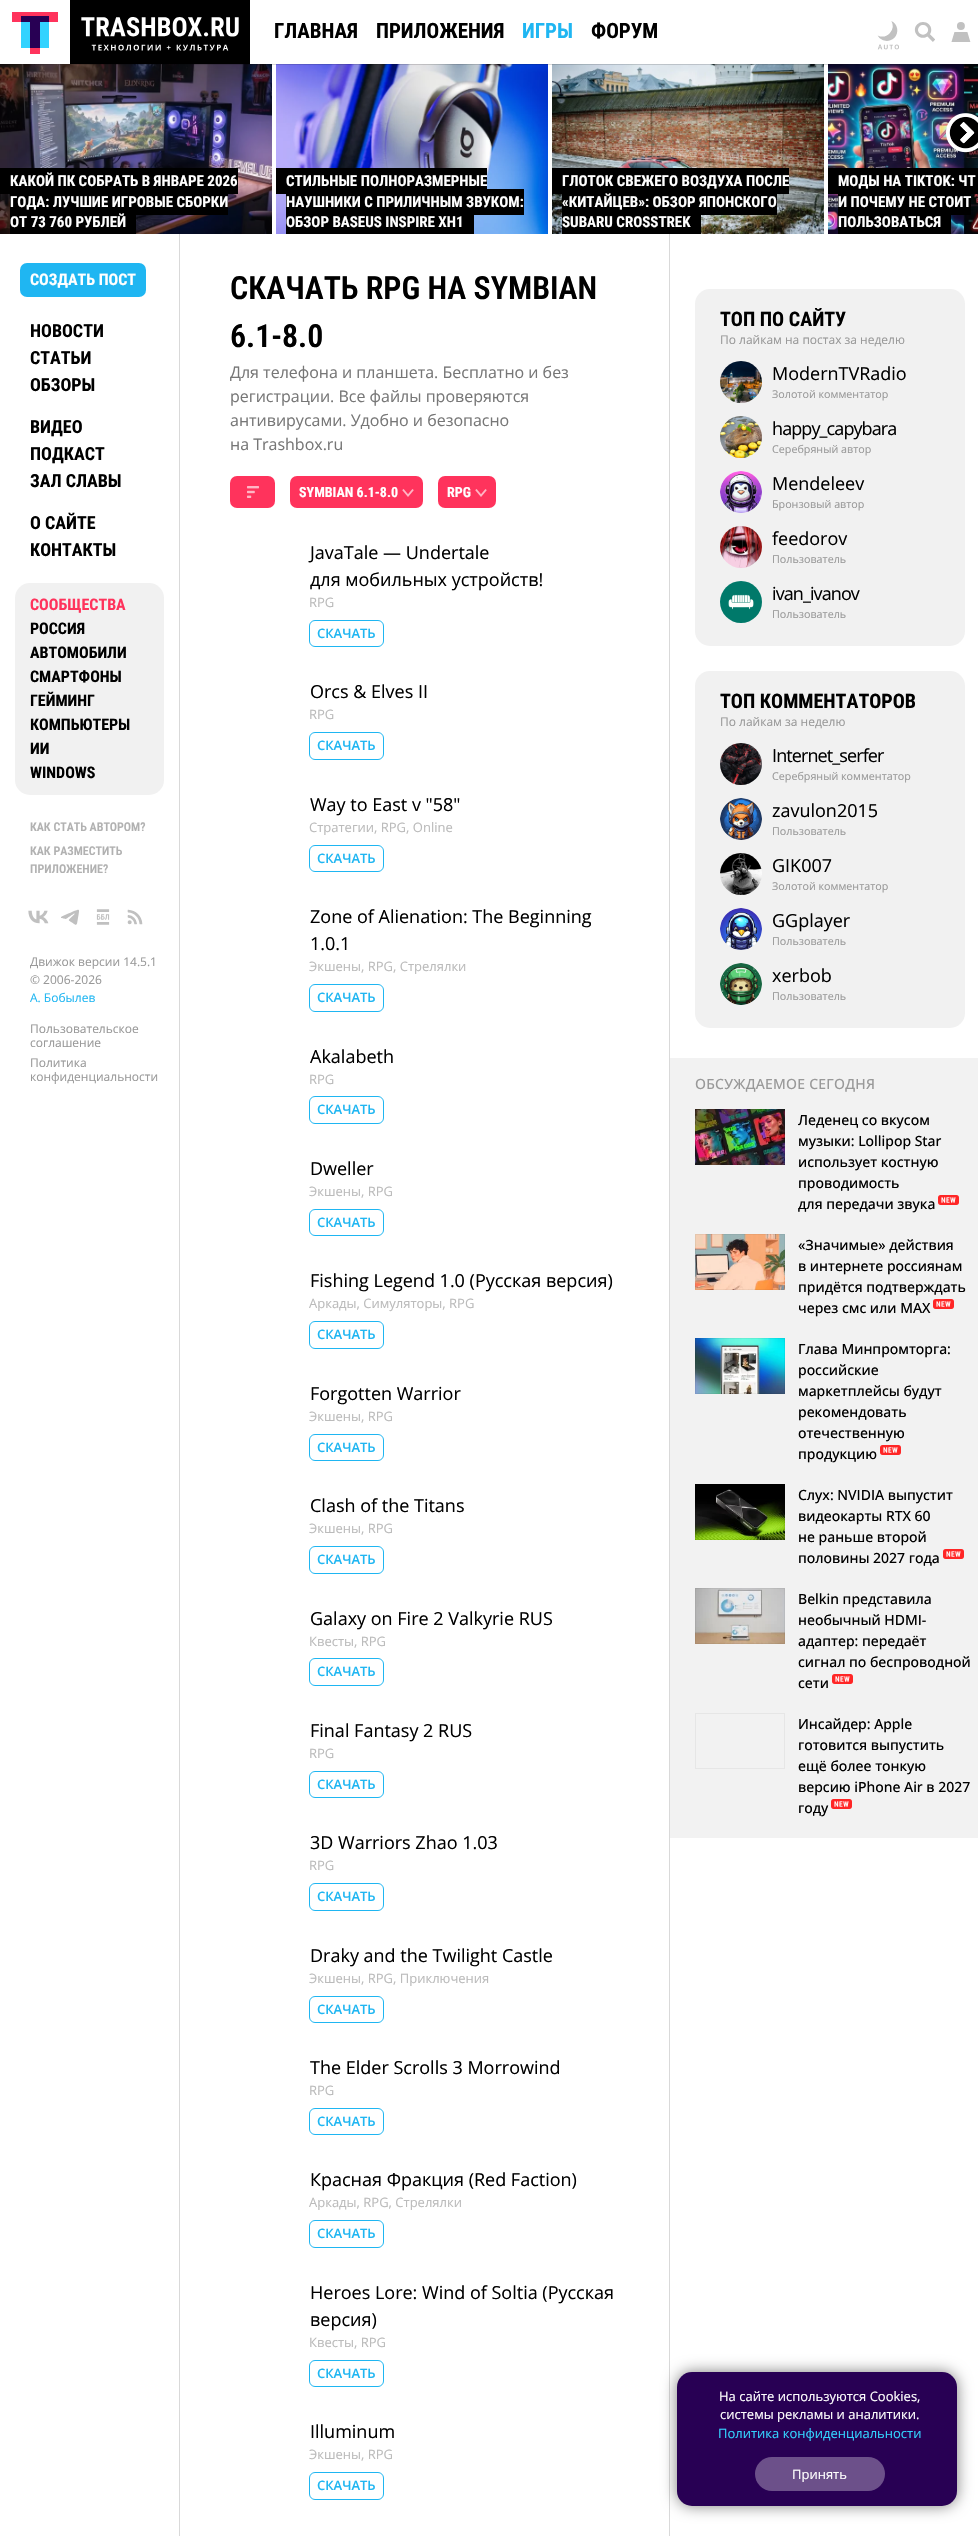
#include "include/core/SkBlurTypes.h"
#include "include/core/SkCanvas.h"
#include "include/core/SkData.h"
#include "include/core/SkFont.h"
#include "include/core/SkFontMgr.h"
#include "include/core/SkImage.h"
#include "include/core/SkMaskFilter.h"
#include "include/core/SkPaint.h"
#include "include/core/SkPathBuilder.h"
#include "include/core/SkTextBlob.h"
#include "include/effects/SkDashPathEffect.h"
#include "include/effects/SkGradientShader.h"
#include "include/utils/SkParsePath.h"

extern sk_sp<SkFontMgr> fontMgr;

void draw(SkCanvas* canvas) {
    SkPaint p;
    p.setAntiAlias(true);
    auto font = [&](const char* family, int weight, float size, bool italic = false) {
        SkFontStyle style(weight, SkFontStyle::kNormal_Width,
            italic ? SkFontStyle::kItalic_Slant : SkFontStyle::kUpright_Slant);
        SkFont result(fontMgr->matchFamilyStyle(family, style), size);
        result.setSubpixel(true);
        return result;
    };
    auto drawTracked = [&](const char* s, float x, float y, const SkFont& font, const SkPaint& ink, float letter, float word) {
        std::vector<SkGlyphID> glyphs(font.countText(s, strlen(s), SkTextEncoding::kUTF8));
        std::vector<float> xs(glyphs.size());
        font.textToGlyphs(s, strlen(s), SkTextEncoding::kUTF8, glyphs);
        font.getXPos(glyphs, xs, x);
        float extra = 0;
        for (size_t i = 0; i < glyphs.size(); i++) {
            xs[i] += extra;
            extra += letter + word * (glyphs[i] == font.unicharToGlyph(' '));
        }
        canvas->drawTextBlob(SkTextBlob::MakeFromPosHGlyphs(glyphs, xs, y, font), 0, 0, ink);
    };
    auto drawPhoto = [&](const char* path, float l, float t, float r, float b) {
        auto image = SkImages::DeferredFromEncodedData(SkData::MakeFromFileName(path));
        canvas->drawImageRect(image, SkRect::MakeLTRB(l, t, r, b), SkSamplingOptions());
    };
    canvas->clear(0xFFFFFFFF);
    {
        const struct { float l, t, r, b; SkColor color; } items[] = {
            {12, 12, 58, 22, 0xFFFF335C},
            {21, 16, 49, 22, 0xFF280054},
            {30, 22, 40, 54, 0xFFFF335C},
            {21, 22, 49, 48, 0xFF33D3FF},
            {30, 22, 40, 48, 0xFF280054},
            {70, 0, 250, 64, 0xFF000000},
        };
        for (auto [l, t, r, b, color] : items) {
            p.setColor(color);
            canvas->drawRect(SkRect::MakeLTRB(l, t, r, b), p);
        }
    }
    drawPhoto("media/1.png", 81, 17, 239, 51);
    auto font1 = font("Roboto Condensed", 700, 21);
    canvas->drawString("ГЛАВНАЯ", 274, 38, font1, p);
    canvas->drawString("ПРИЛОЖЕНИЯ", 376, 38, font1, p);
    p.setColor(0xFF1FB6F2);
    canvas->drawString("ИГРЫ", 522, 38, font1, p);
    p.setColor(0xFF000000);
    canvas->drawString("ФОРУМ", 591, 38, font1, p);
    drawPhoto("media/2.png", 877, 21, 899, 50);
    drawPhoto("media/3.png", 914, 22, 935, 42);
    drawPhoto("media/4.png", 951, 22, 971, 42);
    drawPhoto("media/6.png", 0, 64, 272, 234);
    drawPhoto("media/7.png", 276, 64, 548, 234);
    drawPhoto("media/8.png", 552, 64, 824, 234);
    drawPhoto("media/9.png", 828, 64, 978, 234);
    p.setColor(0x26000000);
    canvas->drawRect(SkRect::MakeLTRB(0, 64, 964, 65), p);
    drawPhoto("media/5.png", 946, 113, 978, 153);
    p.setColor(0xFF000000);
    canvas->drawRect(SkRect::MakeLTRB(0, 168, 238, 194), p);
    auto font2 = font("Roboto Condensed", 700, 15);
    p.setColor(0xFFFFFFFF);
    canvas->drawString("КАКОЙ ПК СОБРАТЬ В ЯНВАРЕ 2026", 10, 186, font2, p);
    p.setColor(0xFF000000);
    canvas->drawRect(SkRect::MakeLTRB(10, 194, 228, 215), p);
    p.setColor(0xFFFFFFFF);
    canvas->drawString("ГОДА: ЛУЧШИЕ ИГРОВЫЕ СБОРКИ", 10, 207, font2, p);
    p.setColor(0xFF000000);
    canvas->drawRect(SkRect::MakeLTRB(10, 215, 136, 234), p);
    p.setColor(0xFFFFFFFF);
    canvas->drawString("ОТ 73 760 РУБЛЕЙ", 10, 227, font2, p);
    p.setColor(0xFF000000);
    canvas->drawRect(SkRect::MakeLTRB(276, 168, 487, 194), p);
    p.setColor(0xFFFFFFFF);
    canvas->drawString("СТИЛЬНЫЕ ПОЛНОРАЗМЕРНЫЕ", 286, 186, font2, p);
    p.setColor(0xFF000000);
    canvas->drawRect(SkRect::MakeLTRB(286, 189, 524, 215), p);
    p.setColor(0xFFFFFFFF);
    canvas->drawString("НАУШНИКИ С ПРИЛИЧНЫМ ЗВУКОМ:", 286, 207, font2, p);
    p.setColor(0xFF000000);
    canvas->drawRect(SkRect::MakeLTRB(286, 215, 474, 234), p);
    p.setColor(0xFFFFFFFF);
    canvas->drawString("ОБЗОР BASEUS INSPIRE XH1", 286, 227, font2, p);
    p.setColor(0xFF000000);
    canvas->drawRect(SkRect::MakeLTRB(552, 168, 789, 194), p);
    p.setColor(0xFFFFFFFF);
    canvas->drawString("ГЛОТОК СВЕЖЕГО ВОЗДУХА ПОСЛЕ", 562, 186, font2, p);
    p.setColor(0xFF000000);
    canvas->drawRect(SkRect::MakeLTRB(562, 194, 777, 215), p);
    p.setColor(0xFFFFFFFF);
    canvas->drawString("«КИТАЙЦЕВ»: ОБЗОР ЯПОНСКОГО", 562, 207, font2, p);
    p.setColor(0xFF000000);
    canvas->drawRect(SkRect::MakeLTRB(562, 215, 701, 234), p);
    p.setColor(0xFFFFFFFF);
    canvas->drawString("SUBARU CROSSTREK", 562, 227, font2, p);
    p.setColor(0xFF000000);
    canvas->drawRect(SkRect::MakeLTRB(828, 168, 978, 194), p);
    p.setColor(0xFFFFFFFF);
    canvas->drawString("МОДЫ НА TIKTOK: ЧТ", 838, 186, font2, p);
    p.setColor(0xFF000000);
    canvas->drawRect(SkRect::MakeLTRB(838, 194, 971, 215), p);
    p.setColor(0xFFFFFFFF);
    canvas->drawString("И ПОЧЕМУ НЕ СТОИТ", 838, 207, font2, p);
    p.setColor(0xFF000000);
    canvas->drawRect(SkRect::MakeLTRB(838, 215, 951, 234), p);
    p.setColor(0xFFFFFFFF);
    canvas->drawString("ПОЛЬЗОВАТЬСЯ", 838, 227, font2, p);
    p.setColor(0xFFD9D9D9);
    canvas->drawRect(SkRect::MakeLTRB(179, 234, 180, 2536), p);
    p.setColor(0xFF1FB6F2);
    canvas->drawRoundRect(SkRect::MakeLTRB(20, 263, 146, 297), 7, 7, p);
    auto font3 = font("Roboto Condensed", 700, 16);
    p.setColor(0xFFFFFFFF);
    canvas->drawString("СОЗДАТЬ ПОСТ", 30, 285, font3, p);
    auto font4 = font("Roboto Condensed", 700, 18);
    p.setColor(0xFF000000);
    {
        const struct { const char* s; float x, y; } items[] = {
            {"НОВОСТИ", 30, 337},
            {"СТАТЬИ", 30, 364},
            {"ОБЗОРЫ", 30, 391},
            {"ВИДЕО", 30, 433},
            {"ПОДКАСТ", 30, 460},
            {"ЗАЛ СЛАВЫ", 30, 487},
            {"О САЙТЕ", 30, 529},
            {"КОНТАКТЫ", 30, 556},
        };
        for (auto [s, x, y] : items) {
            canvas->drawString(s, x, y, font4, p);
        }
    }
    p.setColor(0xFFF1F1F1);
    canvas->drawRoundRect(SkRect::MakeLTRB(15, 583, 164, 795), 15, 15, p);
    p.setColor(0xFFFF335C);
    canvas->drawString("СООБЩЕСТВА", 30, 610, font3, p);
    p.setColor(0xFF000000);
    {
        const struct { const char* s; float x, y; } items[] = {
            {"РОССИЯ", 30, 634},
            {"АВТОМОБИЛИ", 30, 658},
            {"СМАРТФОНЫ", 30, 682},
            {"ГЕЙМИНГ", 30, 706},
            {"КОМПЬЮТЕРЫ", 30, 730},
            {"ИИ", 30, 754},
            {"WINDOWS", 30, 778},
        };
        for (auto [s, x, y] : items) {
            canvas->drawString(s, x, y, font3, p);
        }
    }
    auto font5 = font("Roboto Condensed", 600, 12);
    p.setColor(0xFFB1B1B1);
    {
        const struct { const char* s; float x, y; } items[] = {
            {"КАК СТАТЬ АВТОРОМ?", 30, 831},
            {"КАК РАЗМЕСТИТЬ", 30, 855},
            {"ПРИЛОЖЕНИЕ?", 30, 873},
        };
        for (auto [s, x, y] : items) {
            canvas->drawString(s, x, y, font5, p);
        }
    }
    drawPhoto("media/10.png", 28, 910, 49, 924);
    drawPhoto("media/11.png", 61, 909, 79, 925);
    drawPhoto("media/12.png", 96, 909, 110, 925);
    drawPhoto("media/13.png", 127, 909, 143, 925);
    auto font6 = font("Open Sans", 400, 12);
    p.setColor(0xFF999999);
    canvas->drawString("Движок версии 14.5.1", 30, 966, font6, p);
    canvas->drawString("© 2006-2026", 30, 984, font6, p);
    p.setColor(0xFF1FB6F2);
    canvas->drawString("А. Бобылев", 30, 1002, font6, p);
    p.setColor(0xFF999999);
    {
        const struct { const char* s; float x, y; } items[] = {
            {"Пользовательское", 30, 1033},
            {"соглашение", 30, 1047},
            {"Политика", 30, 1067},
            {"конфиденциальности", 30, 1081},
        };
        for (auto [s, x, y] : items) {
            canvas->drawString(s, x, y, font6, p);
        }
    }
    p.setColor(0xFFD9D9D9);
    canvas->drawRect(SkRect::MakeLTRB(669, 234, 670, 2536), p);
    auto font7 = font("Roboto Condensed", 600, 32);
    p.setColor(0xFF000000);
    canvas->drawString("СКАЧАТЬ RPG НА SYMBIAN", 230, 299, font7, p);
    canvas->drawString("6.1-8.0", 230, 347, font7, p);
    auto font8 = font("Open Sans", 400, 16);
    p.setColor(0xFF777777);
    {
        const struct { const char* s; float x, y; } items[] = {
            {"Для телефона и планшета. Бесплатно и без", 230, 378},
            {"регистрации. Все файлы проверяются", 230, 402},
            {"антивирусами. Удобно и безопасно", 230, 426},
            {"на Trashbox.ru", 230, 450},
        };
        for (auto [s, x, y] : items) {
            canvas->drawString(s, x, y, font8, p);
        }
    }
    p.setColor(0xFFFF335C);
    canvas->drawRoundRect(SkRect::MakeLTRB(230, 476, 275, 508), 7, 7, p);
    drawPhoto("media/14.png", 247, 486, 259, 498);
    canvas->drawRoundRect(SkRect::MakeLTRB(290, 476, 423, 508), 7, 7, p);
    auto font9 = font("Roboto Condensed", 700, 14);
    p.setColor(0xFFFFFFFF);
    canvas->drawString("SYMBIAN 6.1-8.0", 299, 497, font9, p);
    drawPhoto("media/15.png", 402, 489, 414, 497);
    p.setColor(0xFFFF335C);
    canvas->drawRoundRect(SkRect::MakeLTRB(438, 476, 496, 508), 7, 7, p);
    p.setColor(0xFFFFFFFF);
    canvas->drawString("RPG", 447, 497, font9, p);
    drawPhoto("media/15.png", 475, 489, 487, 497);
    auto font10 = font("Open Sans", 400, 18);
    p.setColor(0xFF000000);
    canvas->drawString("JavaTale — Undertale", 310, 559, font10, p);
    canvas->drawString("для мобильных устройств!", 310, 586, font10, p);
    auto font11 = font("Open Sans", 400, 13);
    p.setColor(0xFFBBBBBB);
    canvas->drawString("RPG", 309, 607, font11, p);
    p.setStyle(SkPaint::kStroke_Style);
    p.setStrokeWidth(1);
    p.setColor(0xFF1FB6F2);
    canvas->drawRoundRect(SkRect::MakeLTRB(309.5f, 620.5f, 383.5f, 646.5f), 5.5f, 5.5f, p);
    auto font12 = font("Open Sans", 600, 13);
    p.setStyle(SkPaint::kFill_Style);
    canvas->drawString("СКАЧАТЬ", 317, 638, font12, p);
    p.setColor(0xFF000000);
    canvas->drawString("Orcs & Elves II", 310, 698, font10, p);
    p.setColor(0xFFBBBBBB);
    canvas->drawString("RPG", 309, 719, font11, p);
    p.setStyle(SkPaint::kStroke_Style);
    p.setColor(0xFF1FB6F2);
    canvas->drawRoundRect(SkRect::MakeLTRB(309.5f, 732.5f, 383.5f, 759.5f), 5.5f, 5.5f, p);
    p.setStyle(SkPaint::kFill_Style);
    canvas->drawString("СКАЧАТЬ", 317, 750, font12, p);
    p.setColor(0xFF000000);
    canvas->drawString("Way to East v \"58\"", 310, 811, font10, p);
    p.setColor(0xFFBBBBBB);
    canvas->drawString("Стратегии, RPG, Online", 309, 832, font11, p);
    p.setStyle(SkPaint::kStroke_Style);
    p.setColor(0xFF1FB6F2);
    canvas->drawRoundRect(SkRect::MakeLTRB(309.5f, 845.5f, 383.5f, 871.5f), 5.5f, 5.5f, p);
    p.setStyle(SkPaint::kFill_Style);
    canvas->drawString("СКАЧАТЬ", 317, 863, font12, p);
    p.setColor(0xFF000000);
    canvas->drawString("Zone of Alienation: The Beginning", 310, 923, font10, p);
    canvas->drawString("1.0.1", 310, 950, font10, p);
    p.setColor(0xFFBBBBBB);
    canvas->drawString("Экшены, RPG, Стрелялки", 309, 971, font11, p);
    p.setStyle(SkPaint::kStroke_Style);
    p.setColor(0xFF1FB6F2);
    canvas->drawRoundRect(SkRect::MakeLTRB(309.5f, 984.5f, 383.5f, 1011.5f), 5.5f, 5.5f, p);
    p.setStyle(SkPaint::kFill_Style);
    canvas->drawString("СКАЧАТЬ", 317, 1002, font12, p);
    p.setColor(0xFF000000);
    canvas->drawString("Akalabeth", 310, 1063, font10, p);
    p.setColor(0xFFBBBBBB);
    canvas->drawString("RPG", 309, 1084, font11, p);
    p.setStyle(SkPaint::kStroke_Style);
    p.setColor(0xFF1FB6F2);
    canvas->drawRoundRect(SkRect::MakeLTRB(309.5f, 1096.5f, 383.5f, 1123.5f), 5.5f, 5.5f, p);
    p.setStyle(SkPaint::kFill_Style);
    canvas->drawString("СКАЧАТЬ", 317, 1114, font12, p);
    p.setColor(0xFF000000);
    canvas->drawString("Dweller", 310, 1175, font10, p);
    p.setColor(0xFFBBBBBB);
    canvas->drawString("Экшены, RPG", 309, 1196, font11, p);
    p.setStyle(SkPaint::kStroke_Style);
    p.setColor(0xFF1FB6F2);
    canvas->drawRoundRect(SkRect::MakeLTRB(309.5f, 1209.5f, 383.5f, 1235.5f), 5.5f, 5.5f, p);
    p.setStyle(SkPaint::kFill_Style);
    canvas->drawString("СКАЧАТЬ", 317, 1227, font12, p);
    p.setColor(0xFF000000);
    canvas->drawString("Fishing Legend 1.0 (Русская версия)", 310, 1287, font10, p);
    p.setColor(0xFFBBBBBB);
    canvas->drawString("Аркады, Симуляторы, RPG", 309, 1308, font11, p);
    p.setStyle(SkPaint::kStroke_Style);
    p.setColor(0xFF1FB6F2);
    canvas->drawRoundRect(SkRect::MakeLTRB(309.5f, 1321.5f, 383.5f, 1348.5f), 5.5f, 5.5f, p);
    p.setStyle(SkPaint::kFill_Style);
    canvas->drawString("СКАЧАТЬ", 317, 1339, font12, p);
    p.setColor(0xFF000000);
    canvas->drawString("Forgotten Warrior", 310, 1400, font10, p);
    p.setColor(0xFFBBBBBB);
    canvas->drawString("Экшены, RPG", 309, 1421, font11, p);
    p.setStyle(SkPaint::kStroke_Style);
    p.setColor(0xFF1FB6F2);
    canvas->drawRoundRect(SkRect::MakeLTRB(309.5f, 1434.5f, 383.5f, 1460.5f), 5.5f, 5.5f, p);
    p.setStyle(SkPaint::kFill_Style);
    canvas->drawString("СКАЧАТЬ", 317, 1452, font12, p);
    p.setColor(0xFF000000);
    canvas->drawString("Clash of the Titans", 310, 1512, font10, p);
    p.setColor(0xFFBBBBBB);
    canvas->drawString("Экшены, RPG", 309, 1533, font11, p);
    p.setStyle(SkPaint::kStroke_Style);
    p.setColor(0xFF1FB6F2);
    canvas->drawRoundRect(SkRect::MakeLTRB(309.5f, 1546.5f, 383.5f, 1573.5f), 5.5f, 5.5f, p);
    p.setStyle(SkPaint::kFill_Style);
    canvas->drawString("СКАЧАТЬ", 317, 1564, font12, p);
    p.setColor(0xFF000000);
    canvas->drawString("Galaxy on Fire 2 Valkyrie RUS", 310, 1625, font10, p);
    p.setColor(0xFFBBBBBB);
    canvas->drawString("Квесты, RPG", 309, 1646, font11, p);
    p.setStyle(SkPaint::kStroke_Style);
    p.setColor(0xFF1FB6F2);
    canvas->drawRoundRect(SkRect::MakeLTRB(309.5f, 1658.5f, 383.5f, 1685.5f), 5.5f, 5.5f, p);
    p.setStyle(SkPaint::kFill_Style);
    canvas->drawString("СКАЧАТЬ", 317, 1676, font12, p);
    p.setColor(0xFF000000);
    canvas->drawString("Final Fantasy 2 RUS", 310, 1737, font10, p);
    p.setColor(0xFFBBBBBB);
    canvas->drawString("RPG", 309, 1758, font11, p);
    p.setStyle(SkPaint::kStroke_Style);
    p.setColor(0xFF1FB6F2);
    canvas->drawRoundRect(SkRect::MakeLTRB(309.5f, 1771.5f, 383.5f, 1797.5f), 5.5f, 5.5f, p);
    p.setStyle(SkPaint::kFill_Style);
    canvas->drawString("СКАЧАТЬ", 317, 1789, font12, p);
    p.setColor(0xFF000000);
    canvas->drawString("3D Warriors Zhao 1.03", 310, 1849, font10, p);
    p.setColor(0xFFBBBBBB);
    canvas->drawString("RPG", 309, 1870, font11, p);
    p.setStyle(SkPaint::kStroke_Style);
    p.setColor(0xFF1FB6F2);
    canvas->drawRoundRect(SkRect::MakeLTRB(309.5f, 1883.5f, 383.5f, 1910.5f), 5.5f, 5.5f, p);
    p.setStyle(SkPaint::kFill_Style);
    canvas->drawString("СКАЧАТЬ", 317, 1901, font12, p);
    p.setColor(0xFF000000);
    canvas->drawString("Draky and the Twilight Castle", 310, 1962, font10, p);
    p.setColor(0xFFBBBBBB);
    canvas->drawString("Экшены, RPG, Приключения", 309, 1983, font11, p);
    p.setStyle(SkPaint::kStroke_Style);
    p.setColor(0xFF1FB6F2);
    canvas->drawRoundRect(SkRect::MakeLTRB(309.5f, 1996.5f, 383.5f, 2022.5f), 5.5f, 5.5f, p);
    p.setStyle(SkPaint::kFill_Style);
    canvas->drawString("СКАЧАТЬ", 317, 2014, font12, p);
    p.setColor(0xFF000000);
    canvas->drawString("The Elder Scrolls 3 Morrowind", 310, 2074, font10, p);
    p.setColor(0xFFBBBBBB);
    canvas->drawString("RPG", 309, 2095, font11, p);
    p.setStyle(SkPaint::kStroke_Style);
    p.setColor(0xFF1FB6F2);
    canvas->drawRoundRect(SkRect::MakeLTRB(309.5f, 2108.5f, 383.5f, 2134.5f), 5.5f, 5.5f, p);
    p.setStyle(SkPaint::kFill_Style);
    canvas->drawString("СКАЧАТЬ", 317, 2126, font12, p);
    p.setColor(0xFF000000);
    canvas->drawString("Красная Фракция (Red Faction)", 310, 2186, font10, p);
    p.setColor(0xFFBBBBBB);
    canvas->drawString("Аркады, RPG, Стрелялки", 309, 2207, font11, p);
    p.setStyle(SkPaint::kStroke_Style);
    p.setColor(0xFF1FB6F2);
    canvas->drawRoundRect(SkRect::MakeLTRB(309.5f, 2220.5f, 383.5f, 2247.5f), 5.5f, 5.5f, p);
    p.setStyle(SkPaint::kFill_Style);
    canvas->drawString("СКАЧАТЬ", 317, 2238, font12, p);
    p.setColor(0xFF000000);
    canvas->drawString("Heroes Lore: Wind of Soltia (Русская", 310, 2299, font10, p);
    canvas->drawString("версия)", 310, 2326, font10, p);
    p.setColor(0xFFBBBBBB);
    canvas->drawString("Квесты, RPG", 309, 2347, font11, p);
    p.setStyle(SkPaint::kStroke_Style);
    p.setColor(0xFF1FB6F2);
    canvas->drawRoundRect(SkRect::MakeLTRB(309.5f, 2360.5f, 383.5f, 2386.5f), 5.5f, 5.5f, p);
    p.setStyle(SkPaint::kFill_Style);
    canvas->drawString("СКАЧАТЬ", 317, 2378, font12, p);
    p.setColor(0xFF000000);
    canvas->drawString("Illuminum", 310, 2438, font10, p);
    p.setColor(0xFFBBBBBB);
    canvas->drawString("Экшены, RPG", 309, 2459, font11, p);
    p.setStyle(SkPaint::kStroke_Style);
    p.setColor(0xFF1FB6F2);
    canvas->drawRoundRect(SkRect::MakeLTRB(309.5f, 2472.5f, 383.5f, 2499.5f), 5.5f, 5.5f, p);
    p.setStyle(SkPaint::kFill_Style);
    canvas->drawString("СКАЧАТЬ", 317, 2490, font12, p);
    p.setColor(0xFFF1F1F1);
    canvas->drawRoundRect(SkRect::MakeLTRB(695, 289, 965, 646), 15, 15, p);
    auto font13 = font("Roboto Condensed", 700, 20);
    p.setColor(0xFF000000);
    canvas->drawString("ТОП ПО САЙТУ", 720, 326, font13, p);
    p.setColor(0xFF999999);
    canvas->drawString("По лайкам на постах за неделю", 720, 344, font6, p);
    drawPhoto("media/16.png", 720, 361, 762, 403);
    p.setColor(0xFF000000);
    canvas->drawString("ModernTVRadio", 772, 380, font10, p);
    auto font14 = font("Open Sans", 400, 10.75f);
    p.setColor(0xFF999999);
    canvas->drawString("Золотой комментатор", 772, 398, font14, p);
    drawPhoto("media/17.png", 720, 416, 762, 458);
    p.setColor(0xFF000000);
    drawTracked("happy_capybara", 772, 435, font10, p, -0.9f, 0);
    p.setColor(0xFF999999);
    canvas->drawString("Серебряный автор", 772, 453, font14, p);
    drawPhoto("media/18.png", 720, 471, 762, 513);
    p.setColor(0xFF000000);
    canvas->drawString("Mendeleev", 772, 490, font10, p);
    p.setColor(0xFF999999);
    canvas->drawString("Бронзовый автор", 772, 508, font14, p);
    drawPhoto("media/19.png", 720, 526, 762, 568);
    p.setColor(0xFF000000);
    canvas->drawString("feedorov", 772, 545, font10, p);
    p.setColor(0xFF999999);
    canvas->drawString("Пользователь", 772, 563, font14, p);
    drawPhoto("media/20.png", 720, 581, 762, 623);
    p.setColor(0xFF000000);
    drawTracked("ivan_ivanov", 772, 600, font10, p, -0.9f, 0);
    p.setColor(0xFF999999);
    canvas->drawString("Пользователь", 772, 618, font14, p);
    p.setColor(0xFFF1F1F1);
    canvas->drawRoundRect(SkRect::MakeLTRB(695, 671, 965, 1028), 15, 15, p);
    p.setColor(0xFF000000);
    canvas->drawString("ТОП КОММЕНТАТОРОВ", 720, 708, font13, p);
    p.setColor(0xFF999999);
    canvas->drawString("По лайкам за неделю", 720, 726, font6, p);
    drawPhoto("media/21.png", 720, 743, 762, 785);
    p.setColor(0xFF000000);
    drawTracked("Internet_serfer", 772, 762, font10, p, -0.9f, 0);
    p.setColor(0xFF999999);
    canvas->drawString("Серебряный комментатор", 772, 780, font14, p);
    drawPhoto("media/22.png", 720, 798, 762, 840);
    p.setColor(0xFF000000);
    canvas->drawString("zavulon2015", 772, 817, font10, p);
    p.setColor(0xFF999999);
    canvas->drawString("Пользователь", 772, 835, font14, p);
    drawPhoto("media/23.png", 720, 853, 762, 895);
    p.setColor(0xFF000000);
    canvas->drawString("GIK007", 772, 872, font10, p);
    p.setColor(0xFF999999);
    canvas->drawString("Золотой комментатор", 772, 890, font14, p);
    drawPhoto("media/24.png", 720, 908, 762, 950);
    p.setColor(0xFF000000);
    canvas->drawString("GGplayer", 772, 927, font10, p);
    p.setColor(0xFF999999);
    canvas->drawString("Пользователь", 772, 945, font14, p);
    drawPhoto("media/25.png", 720, 963, 762, 1005);
    p.setColor(0xFF000000);
    canvas->drawString("xerbob", 772, 982, font10, p);
    p.setColor(0xFF999999);
    canvas->drawString("Пользователь", 772, 1000, font14, p);
    p.setColor(0xFFF2F2F2);
    canvas->drawRect(SkRect::MakeLTRB(670, 1058, 978, 1838), p);
    auto font15 = font("Open Sans", 500, 14);
    p.setColor(0xFF999999);
    drawTracked("ОБСУЖДАЕМОЕ СЕГОДНЯ", 695, 1089, font15, p, 0.25f, 0);
    drawPhoto("media/26.png", 695, 1109, 785, 1165);
    p.setStyle(SkPaint::kStroke_Style);
    p.setColor(0x0D000000);
    canvas->drawRect(SkRect::MakeLTRB(695.5f, 1109.5f, 784.5f, 1164.5f), p);
    p.setStyle(SkPaint::kFill_Style);
    p.setColor(0xFF000000);
    {
        const struct { const char* s; float x, y; } items[] = {
            {"Леденец со вкусом", 798, 1125},
            {"музыки: Lollipop Star", 798, 1146},
            {"использует костную", 798, 1167},
            {"проводимость", 798, 1188},
        };
        for (auto [s, x, y] : items) {
            canvas->drawString(s, x, y, font15, p);
        }
    }
    drawPhoto("media/27.png", 938, 1195, 959, 1205);
    canvas->drawString("для передачи звука", 798, 1209, font15, p);
    drawPhoto("media/28.png", 695, 1234, 785, 1290);
    p.setStyle(SkPaint::kStroke_Style);
    p.setColor(0x0D000000);
    canvas->drawRect(SkRect::MakeLTRB(695.5f, 1234.5f, 784.5f, 1289.5f), p);
    p.setStyle(SkPaint::kFill_Style);
    p.setColor(0xFF000000);
    {
        const struct { const char* s; float x, y; } items[] = {
            {"«Значимые» действия", 798, 1250},
            {"в интернете россиянам", 798, 1271},
            {"придётся подтверждать", 798, 1292},
            {"через смс или MAX", 798, 1313},
        };
        for (auto [s, x, y] : items) {
            canvas->drawString(s, x, y, font15, p);
        }
    }
    drawPhoto("media/27.png", 933, 1299, 954, 1309);
    drawPhoto("media/29.png", 695, 1338, 785, 1394);
    p.setStyle(SkPaint::kStroke_Style);
    p.setColor(0x0D000000);
    canvas->drawRect(SkRect::MakeLTRB(695.5f, 1338.5f, 784.5f, 1393.5f), p);
    p.setStyle(SkPaint::kFill_Style);
    p.setColor(0xFF000000);
    {
        const struct { const char* s; float x, y; } items[] = {
            {"Глава Минпромторга:", 798, 1354},
            {"российские", 798, 1375},
            {"маркетплейсы будут", 798, 1396},
            {"рекомендовать", 798, 1417},
            {"отечественную", 798, 1438},
        };
        for (auto [s, x, y] : items) {
            canvas->drawString(s, x, y, font15, p);
        }
    }
    drawPhoto("media/27.png", 880, 1445, 901, 1455);
    canvas->drawString("продукцию", 798, 1459, font15, p);
    drawPhoto("media/30.png", 695, 1484, 785, 1540);
    p.setStyle(SkPaint::kStroke_Style);
    p.setColor(0x0D000000);
    canvas->drawRect(SkRect::MakeLTRB(695.5f, 1484.5f, 784.5f, 1539.5f), p);
    p.setStyle(SkPaint::kFill_Style);
    p.setColor(0xFF000000);
    {
        const struct { const char* s; float x, y; } items[] = {
            {"Слух: NVIDIA выпустит", 798, 1500},
            {"видеокарты RTX 60", 798, 1521},
            {"не раньше второй", 798, 1542},
            {"половины 2027 года", 798, 1563},
        };
        for (auto [s, x, y] : items) {
            canvas->drawString(s, x, y, font15, p);
        }
    }
    drawPhoto("media/27.png", 943, 1549, 964, 1559);
    drawPhoto("media/31.png", 695, 1588, 785, 1644);
    p.setStyle(SkPaint::kStroke_Style);
    p.setColor(0x0D000000);
    canvas->drawRect(SkRect::MakeLTRB(695.5f, 1588.5f, 784.5f, 1643.5f), p);
    p.setStyle(SkPaint::kFill_Style);
    p.setColor(0xFF000000);
    {
        const struct { const char* s; float x, y; } items[] = {
            {"Belkin представила", 798, 1604},
            {"необычный HDMI-", 798, 1625},
            {"адаптер: передаёт", 798, 1646},
            {"сигнал по беспроводной", 798, 1667},
            {"сети", 798, 1688},
        };
        for (auto [s, x, y] : items) {
            canvas->drawString(s, x, y, font15, p);
        }
    }
    drawPhoto("media/27.png", 832, 1674, 853, 1684);
    p.setStyle(SkPaint::kStroke_Style);
    p.setColor(0xFFE6E6E6);
    canvas->drawRect(SkRect::MakeLTRB(695.5f, 1713.5f, 784.5f, 1768.5f), p);
    p.setStyle(SkPaint::kFill_Style);
    p.setColor(0xFF000000);
    {
        const struct { const char* s; float x, y; } items[] = {
            {"Инсайдер: Apple", 798, 1729},
            {"готовится выпустить", 798, 1750},
            {"ещё более тонкую", 798, 1771},
            {"версию iPhone Air в 2027", 798, 1792},
        };
        for (auto [s, x, y] : items) {
            canvas->drawString(s, x, y, font15, p);
        }
    }
    drawPhoto("media/27.png", 831, 1799, 852, 1809);
    canvas->drawString("году", 798, 1813, font15, p);
    p.setColor(0x80000000);
    p.setMaskFilter(SkMaskFilter::MakeBlur(kNormal_SkBlurStyle, 7.5f));
    canvas->drawRoundRect(SkRect::MakeLTRB(677, 2372, 957, 2506), 15, 15, p);
    p.setMaskFilter(nullptr);
    p.setColor(0xFF280054);
    canvas->drawRoundRect(SkRect::MakeLTRB(677, 2372, 957, 2506), 15, 15, p);
    p.setColor(0xFFFFFFFF);
    canvas->drawString("На сайте используются Cookies,", 719, 2401, font11, p);
    canvas->drawString("системы рекламы и аналитики.", 720, 2419, font11, p);
    p.setColor(0xFF33D3FF);
    canvas->drawString("Политика конфиденциальности", 718, 2438, font11, p);
    p.setColor(0xFF6C508A);
    canvas->drawRoundRect(SkRect::MakeLTRB(755, 2457, 885, 2491), 17, 17, p);
    p.setColor(0xFFFFFFFF);
    canvas->drawString("Принять", 792, 2479, font11, p);
}
